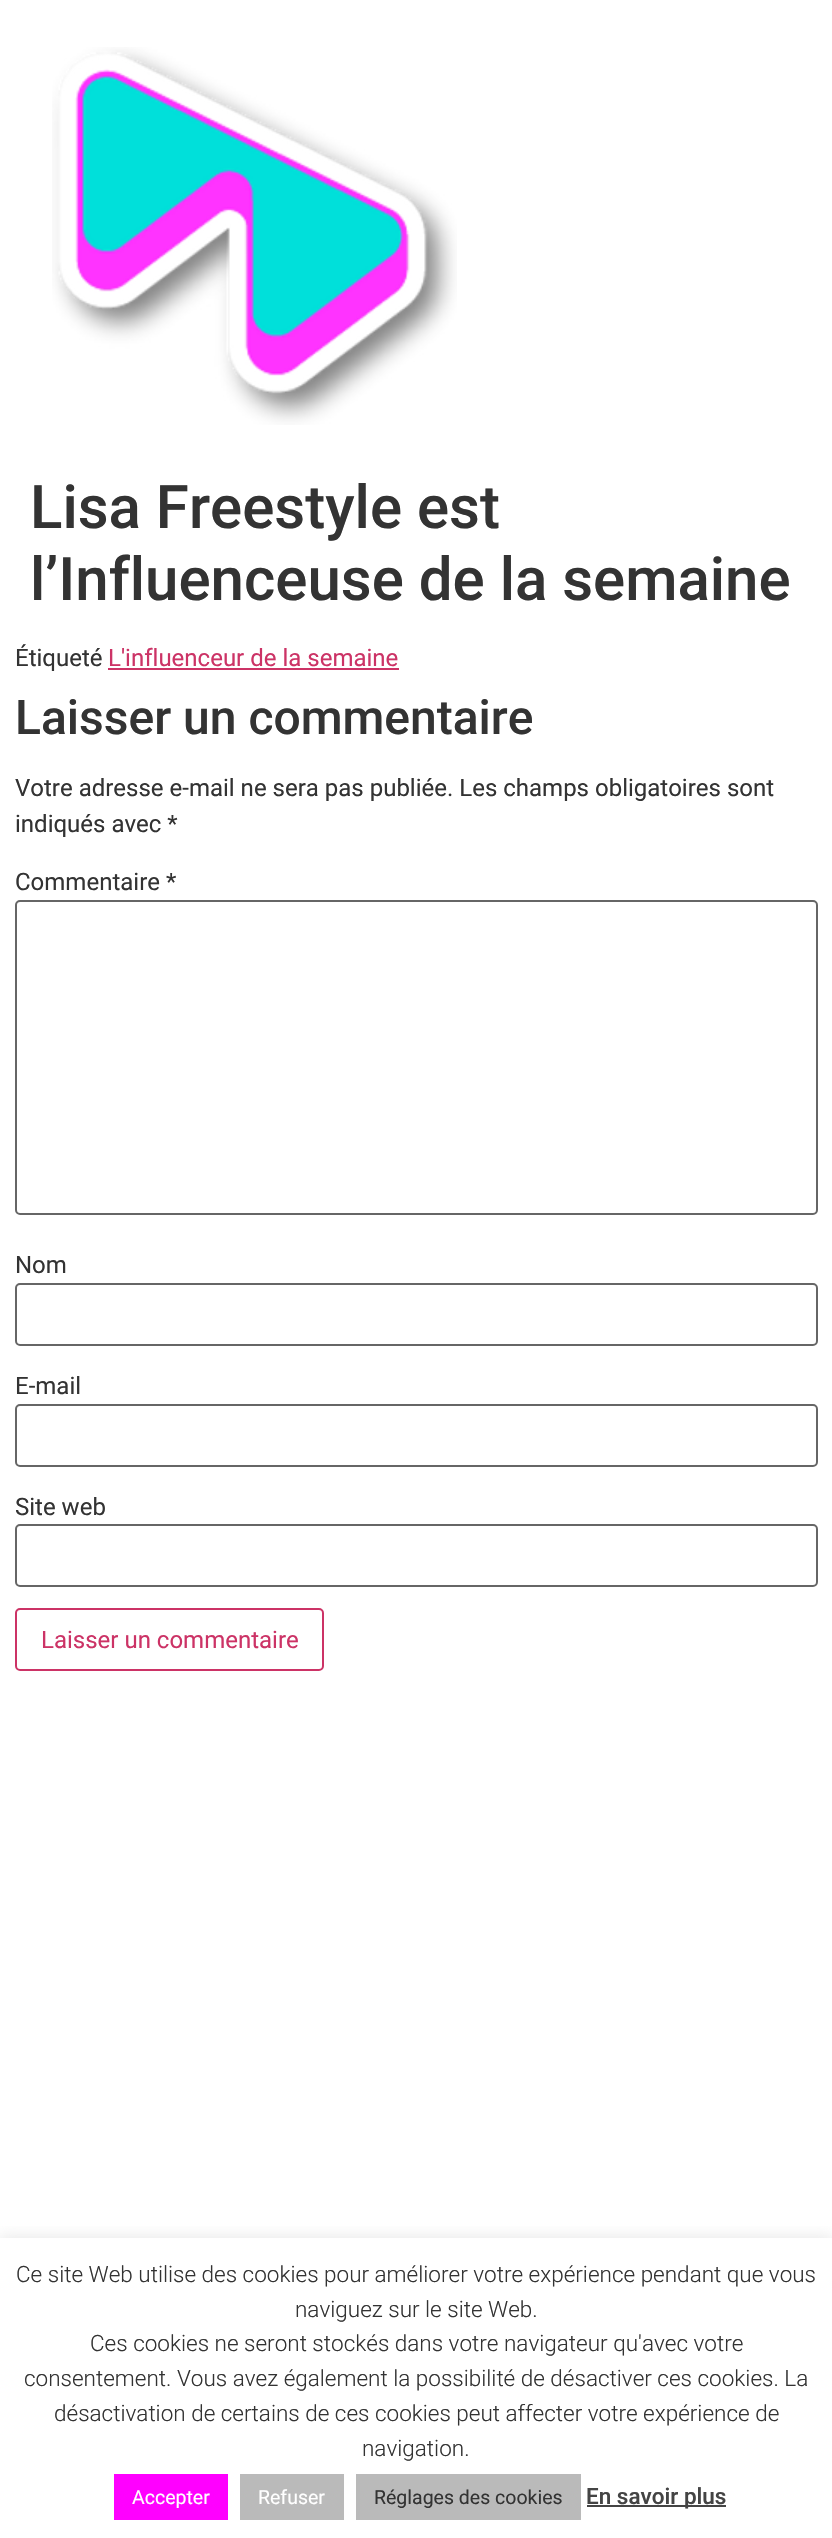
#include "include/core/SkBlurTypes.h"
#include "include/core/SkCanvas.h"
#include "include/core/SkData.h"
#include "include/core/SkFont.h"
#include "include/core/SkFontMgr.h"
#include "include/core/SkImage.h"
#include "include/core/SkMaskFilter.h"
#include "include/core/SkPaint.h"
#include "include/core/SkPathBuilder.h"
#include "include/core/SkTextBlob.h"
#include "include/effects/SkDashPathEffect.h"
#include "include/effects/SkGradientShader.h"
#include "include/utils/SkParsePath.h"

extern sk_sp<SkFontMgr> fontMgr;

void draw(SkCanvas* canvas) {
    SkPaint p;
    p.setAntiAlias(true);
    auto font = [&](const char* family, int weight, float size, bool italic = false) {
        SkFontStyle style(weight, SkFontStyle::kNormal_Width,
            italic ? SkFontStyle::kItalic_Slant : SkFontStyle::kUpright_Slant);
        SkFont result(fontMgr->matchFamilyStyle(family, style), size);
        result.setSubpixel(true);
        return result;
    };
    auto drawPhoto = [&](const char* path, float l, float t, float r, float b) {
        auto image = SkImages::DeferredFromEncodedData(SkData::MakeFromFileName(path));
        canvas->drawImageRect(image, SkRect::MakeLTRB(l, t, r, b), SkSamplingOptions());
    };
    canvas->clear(0xFFFFFFFF);
    drawPhoto("media/1.png", 52, 47, 457, 425);
    auto font1 = font("Roboto", 500, 60);
    p.setColor(0xFF333333);
    canvas->drawString("Lisa Freestyle est", 30, 528, font1, p);
    canvas->drawString("l’Influenceuse de la semaine", 30, 600, font1, p);
    auto font2 = font("Roboto", 400, 24);
    canvas->drawString("Étiqueté", 15, 666, font2, p);
    p.setColor(0xFFCC3366);
    canvas->drawString("L'influenceur de la semaine", 108, 666, font2, p);
    canvas->drawRect(SkRect::MakeLTRB(108, 668, 399, 670), p);
    auto font3 = font("Roboto", 500, 48);
    p.setColor(0xFF333333);
    canvas->drawString("Laisser un commentaire", 15, 734, font3, p);
    {
        const struct { const char* s; float x, y; } items[] = {
            {"Votre adresse e-mail ne sera pas publiée. Les champs obligatoires sont", 15, 796},
            {"indiqués avec *", 15, 832},
            {"Commentaire *", 15, 890},
        };
        for (auto [s, x, y] : items) {
            canvas->drawString(s, x, y, font2, p);
        }
    }
    p.setStyle(SkPaint::kStroke_Style);
    p.setStrokeWidth(2);
    p.setColor(0xFF666666);
    canvas->drawRoundRect(SkRect::MakeLTRB(16, 901, 817, 1214), 4, 4, p);
    p.setStyle(SkPaint::kFill_Style);
    p.setColor(0xFF333333);
    canvas->drawString("Nom", 15, 1273, font2, p);
    p.setStyle(SkPaint::kStroke_Style);
    p.setColor(0xFF666666);
    canvas->drawRoundRect(SkRect::MakeLTRB(16, 1284, 817, 1345), 4, 4, p);
    p.setStyle(SkPaint::kFill_Style);
    p.setColor(0xFF333333);
    canvas->drawString("E-mail", 15, 1394, font2, p);
    p.setStyle(SkPaint::kStroke_Style);
    p.setColor(0xFF666666);
    canvas->drawRoundRect(SkRect::MakeLTRB(16, 1405, 817, 1466), 4, 4, p);
    p.setStyle(SkPaint::kFill_Style);
    p.setColor(0xFF333333);
    canvas->drawString("Site web", 15, 1515, font2, p);
    p.setStyle(SkPaint::kStroke_Style);
    p.setColor(0xFF666666);
    canvas->drawRoundRect(SkRect::MakeLTRB(16, 1525, 817, 1586), 4, 4, p);
    p.setColor(0xFFCC3366);
    canvas->drawRoundRect(SkRect::MakeLTRB(16, 1609, 323, 1670), 4, 4, p);
    p.setStyle(SkPaint::kFill_Style);
    canvas->drawString("Laisser un commentaire", 41, 1648, font2, p);
    canvas->save();
    canvas->clipRect(SkRect::MakeLTRB(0, 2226, 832, 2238));
    p.setColor(0x4DACABAB);
    p.setMaskFilter(SkMaskFilter::MakeBlur(kNormal_SkBlurStyle, 7.5f));
    canvas->drawRect(SkRect::MakeLTRB(0, 2237, 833, 2537), p);
    p.setMaskFilter(nullptr);
    canvas->restore();
    auto font4 = font("Roboto", 300, 22.5f);
    p.setColor(0xFF333333);
    {
        const struct { const char* s; float x, y; } items[] = {
            {"Ce site Web utilise des cookies pour améliorer votre expérience pendant que vous", 16, 2282},
            {"naviguez sur le site Web.", 295, 2317},
            {"Ces cookies ne seront stockés dans votre navigateur qu'avec votre", 90, 2351},
            {"consentement. Vous avez également la possibilité de désactiver ces cookies. La", 24, 2386},
            {"désactivation de certains de ces cookies peut affecter votre expérience de", 54, 2421},
            {"navigation.", 362, 2456},
        };
        for (auto [s, x, y] : items) {
            canvas->drawString(s, x, y, font4, p);
        }
    }
    p.setColor(0xFFFF00FF);
    canvas->drawRect(SkRect::MakeLTRB(114, 2474, 228, 2520), p);
    auto font5 = font("Roboto", 400, 19.5f);
    p.setColor(0xFFFFFFFF);
    canvas->drawString("Accepter", 132, 2504, font5, p);
    p.setColor(0xFFBABABA);
    canvas->drawRect(SkRect::MakeLTRB(240, 2474, 344, 2520), p);
    p.setColor(0xFFFFFFFF);
    canvas->drawString("Refuser", 258, 2504, font5, p);
    p.setColor(0xFFBABABA);
    canvas->drawRect(SkRect::MakeLTRB(356, 2474, 581, 2520), p);
    p.setColor(0xFF333333);
    canvas->drawString("Réglages des cookies", 374, 2504, font5, p);
    p.setColor(0xFF444444);
    canvas->drawRect(SkRect::MakeLTRB(587, 2505, 726, 2507), p);
    auto font6 = font("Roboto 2", 500, 22.5f);
    canvas->drawString("En savoir plus", 586, 2504, font6, p);
}
